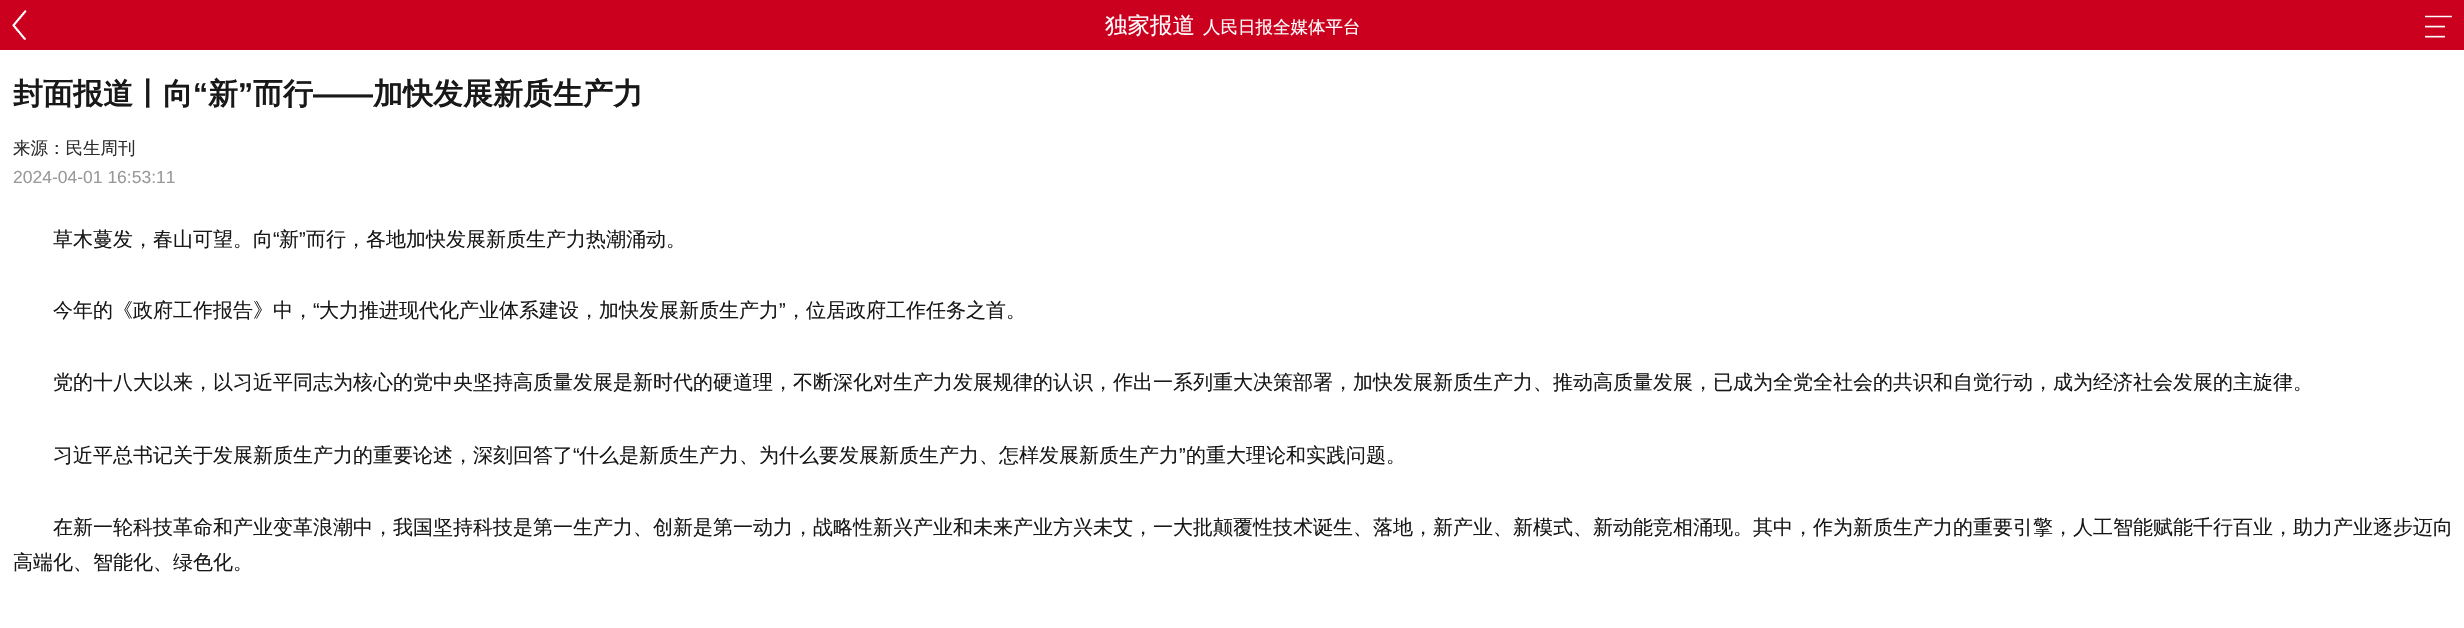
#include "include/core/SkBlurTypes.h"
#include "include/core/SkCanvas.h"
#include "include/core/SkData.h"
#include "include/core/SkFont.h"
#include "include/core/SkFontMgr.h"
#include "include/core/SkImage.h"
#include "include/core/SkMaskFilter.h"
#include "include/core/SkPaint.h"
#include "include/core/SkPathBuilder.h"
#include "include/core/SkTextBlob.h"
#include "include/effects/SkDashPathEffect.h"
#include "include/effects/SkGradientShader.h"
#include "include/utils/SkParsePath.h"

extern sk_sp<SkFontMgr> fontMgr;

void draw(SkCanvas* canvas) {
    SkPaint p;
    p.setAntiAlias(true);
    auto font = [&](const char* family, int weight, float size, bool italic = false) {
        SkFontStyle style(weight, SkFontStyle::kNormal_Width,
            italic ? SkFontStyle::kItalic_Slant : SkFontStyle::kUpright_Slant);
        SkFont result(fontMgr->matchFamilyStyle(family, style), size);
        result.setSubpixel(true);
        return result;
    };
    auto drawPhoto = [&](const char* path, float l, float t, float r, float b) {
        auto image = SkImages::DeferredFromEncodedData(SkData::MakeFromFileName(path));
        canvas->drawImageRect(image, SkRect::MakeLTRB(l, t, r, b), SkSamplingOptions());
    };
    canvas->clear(0xFFFFFFFF);
    p.setColor(0xFFCB001E);
    canvas->drawRect(SkRect::MakeLTRB(0, 0, 2464, 50), p);
    drawPhoto("media/1.png", 12, 10, 27, 40);
    auto font1 = font("WenQuanYi Zen Hei", 500, 22.5f);
    p.setColor(0xFFFFFFFF);
    canvas->drawString("独家报道", 1105, 33, font1, p);
    auto font2 = font("WenQuanYi Zen Hei", 500, 17.5f);
    canvas->drawString("人民日报全媒体平台", 1203, 33, font2, p);
    drawPhoto("media/2.png", 2425, 15, 2452, 38);
    auto font3 = font("WenQuanYi Zen Hei", 700, 30);
    p.setColor(0xFF181818);
    canvas->drawString("封面报道丨向", 13, 104, font3, p);
    auto font4 = font("Liberation Sans", 700, 30);
    canvas->drawString("“", 193, 104, font4, p);
    canvas->drawString("新", 208, 104, font3, p);
    canvas->drawString("”", 238, 104, font4, p);
    canvas->drawString("而行", 253, 104, font3, p);
    canvas->drawString("加快发展新质生产力", 373, 104, font3, p);
    canvas->drawString("——", 313, 104, font4, p);
    p.setColor(0xFF2C2C2C);
    canvas->drawString("来源：民生周刊", 13, 154, font2, p);
    auto font5 = font("Liberation Sans", 400, 17.5f);
    p.setColor(0xFF999999);
    canvas->drawString("2024-04-01 16:53:11", 13, 183, font5, p);
    auto font6 = font("WenQuanYi Zen Hei", 500, 20);
    p.setColor(0xFF181818);
    canvas->drawString("草木蔓发，春山可望。向", 53, 246, font6, p);
    auto font7 = font("Liberation Sans", 400, 20);
    canvas->drawString("“", 273, 246, font7, p);
    canvas->drawString("新", 279, 246, font6, p);
    canvas->drawString("”", 299, 246, font7, p);
    canvas->drawString("而行，各地加快发展新质生产力热潮涌动。", 306, 246, font6, p);
    canvas->drawString("今年的《政府工作报告》中，", 53, 317, font6, p);
    canvas->drawString("“", 313, 317, font7, p);
    canvas->drawString("大力推进现代化产业体系建设，加快发展新质生产力", 319, 317, font6, p);
    canvas->drawString("”", 779, 317, font7, p);
    {
        const struct { const char* s; float x, y; } items[] = {
            {"，位居政府工作任务之首。", 786, 317},
            {"党的十八大以来，以习近平同志为核心的党中央坚持高质量发展是新时代的硬道理，不断深化对生产力发展规律的认识，作出一系列重大决策部署，加快发展新质生产力、推动高质量发展，已成为全党全社会的共识和自觉行动，成为经济社会发展的主旋律。", 53, 389},
            {"习近平总书记关于发展新质生产力的重要论述，深刻回答了", 53, 462},
        };
        for (auto [s, x, y] : items) {
            canvas->drawString(s, x, y, font6, p);
        }
    }
    canvas->drawString("“", 573, 462, font7, p);
    canvas->drawString("什么是新质生产力、为什么要发展新质生产力、怎样发展新质生产力", 579, 462, font6, p);
    canvas->drawString("”", 1179, 462, font7, p);
    {
        const struct { const char* s; float x, y; } items[] = {
            {"的重大理论和实践问题。", 1186, 462},
            {"在新一轮科技革命和产业变革浪潮中，我国坚持科技是第一生产力、创新是第一动力，战略性新兴产业和未来产业方兴未艾，一大批颠覆性技术诞生、落地，新产业、新模式、新动能竞相涌现。其中，作为新质生产力的重要引擎，人工智能赋能千行百业，助力产业逐步迈向", 53, 534},
            {"高端化、智能化、绿色化。", 13, 569},
        };
        for (auto [s, x, y] : items) {
            canvas->drawString(s, x, y, font6, p);
        }
    }
}
